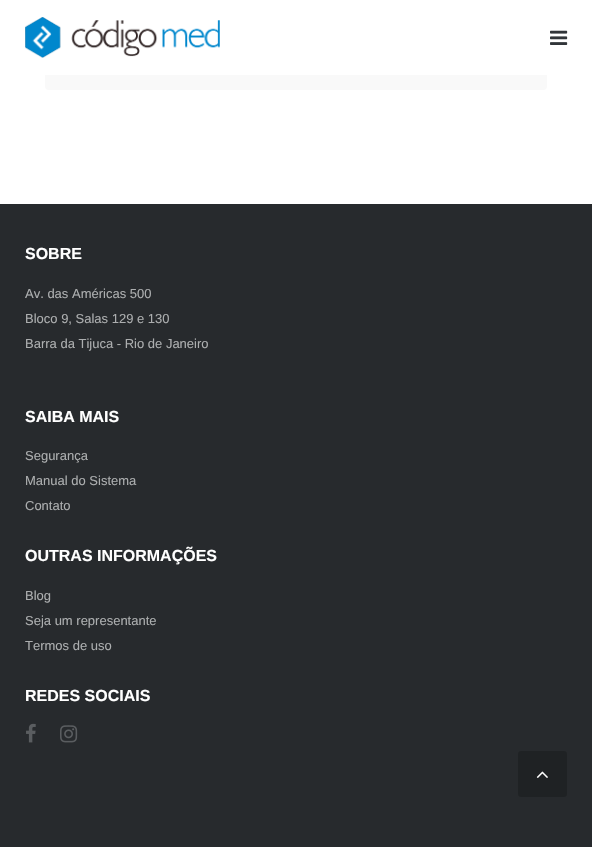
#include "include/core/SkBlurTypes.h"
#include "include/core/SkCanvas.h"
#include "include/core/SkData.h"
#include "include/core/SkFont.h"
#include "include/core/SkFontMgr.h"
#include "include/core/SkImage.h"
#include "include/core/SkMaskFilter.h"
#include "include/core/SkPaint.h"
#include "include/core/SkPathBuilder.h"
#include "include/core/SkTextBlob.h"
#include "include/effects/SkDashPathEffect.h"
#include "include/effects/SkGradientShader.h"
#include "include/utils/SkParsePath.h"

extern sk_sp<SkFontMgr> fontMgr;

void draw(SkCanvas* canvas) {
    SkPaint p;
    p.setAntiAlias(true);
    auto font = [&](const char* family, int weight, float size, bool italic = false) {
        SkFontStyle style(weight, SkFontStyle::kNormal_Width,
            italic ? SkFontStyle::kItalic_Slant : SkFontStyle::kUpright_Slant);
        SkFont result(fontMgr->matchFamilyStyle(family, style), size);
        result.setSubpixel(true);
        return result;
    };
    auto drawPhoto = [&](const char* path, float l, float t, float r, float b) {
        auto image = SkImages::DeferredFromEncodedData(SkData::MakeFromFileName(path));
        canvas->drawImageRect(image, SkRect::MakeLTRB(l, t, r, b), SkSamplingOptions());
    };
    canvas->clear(0xFFFFFFFF);
    p.setColor(0xFFF9F9F9);
    canvas->drawRoundRect(SkRect::MakeLTRB(45, -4, 547, 90), 4, 4, p);
    p.setColor(0xFFFFFFFF);
    canvas->drawRect(SkRect::MakeLTRB(45, 0, 547, 75), p);
    drawPhoto("media/1.png", 25, 17, 220, 58);
    drawPhoto("media/2.png", 550, 30, 568, 45);
    p.setColor(0xFF272A2D);
    canvas->drawRect(SkRect::MakeLTRB(0, 204, 592, 847), p);
    auto font1 = font("Liberation Sans", 700, 16);
    p.setColor(0xFFFFFFFF);
    canvas->drawString("SOBRE", 25, 259, font1, p);
    auto font2 = font("Liberation Sans", 400, 13);
    p.setColor(0xFFACAEAF);
    {
        const struct { const char* s; float x, y; } items[] = {
            {"Av. das Américas 500", 25, 298},
            {"Bloco 9, Salas 129 e 130", 25, 323},
            {"Barra da Tijuca - Rio de Janeiro", 25, 348},
        };
        for (auto [s, x, y] : items) {
            canvas->drawString(s, x, y, font2, p);
        }
    }
    p.setColor(0xFFFFFFFF);
    canvas->drawString("SAIBA MAIS", 25, 422, font1, p);
    p.setColor(0xFFACAEAF);
    {
        const struct { const char* s; float x, y; } items[] = {
            {"Segurança", 25, 460},
            {"Manual do Sistema", 25, 485},
            {"Contato", 25, 510},
        };
        for (auto [s, x, y] : items) {
            canvas->drawString(s, x, y, font2, p);
        }
    }
    p.setColor(0xFFFFFFFF);
    canvas->drawString("OUTRAS INFORMAÇÕES", 25, 561, font1, p);
    p.setColor(0xFFACAEAF);
    {
        const struct { const char* s; float x, y; } items[] = {
            {"Blog", 25, 600},
            {"Seja um representante", 25, 625},
            {"Termos de uso", 25, 650},
        };
        for (auto [s, x, y] : items) {
            canvas->drawString(s, x, y, font2, p);
        }
    }
    p.setColor(0xFFFFFFFF);
    canvas->drawString("REDES SOCIAIS", 25, 701, font1, p);
    drawPhoto("media/3.png", 26, 723, 36, 743);
    drawPhoto("media/4.png", 60, 725, 78, 743);
    p.setColor(0xFF1F2224);
    canvas->drawRoundRect(SkRect::MakeLTRB(518, 751, 567, 797), 3, 3, p);
    drawPhoto("media/5.png", 536, 771, 548, 778);
}
